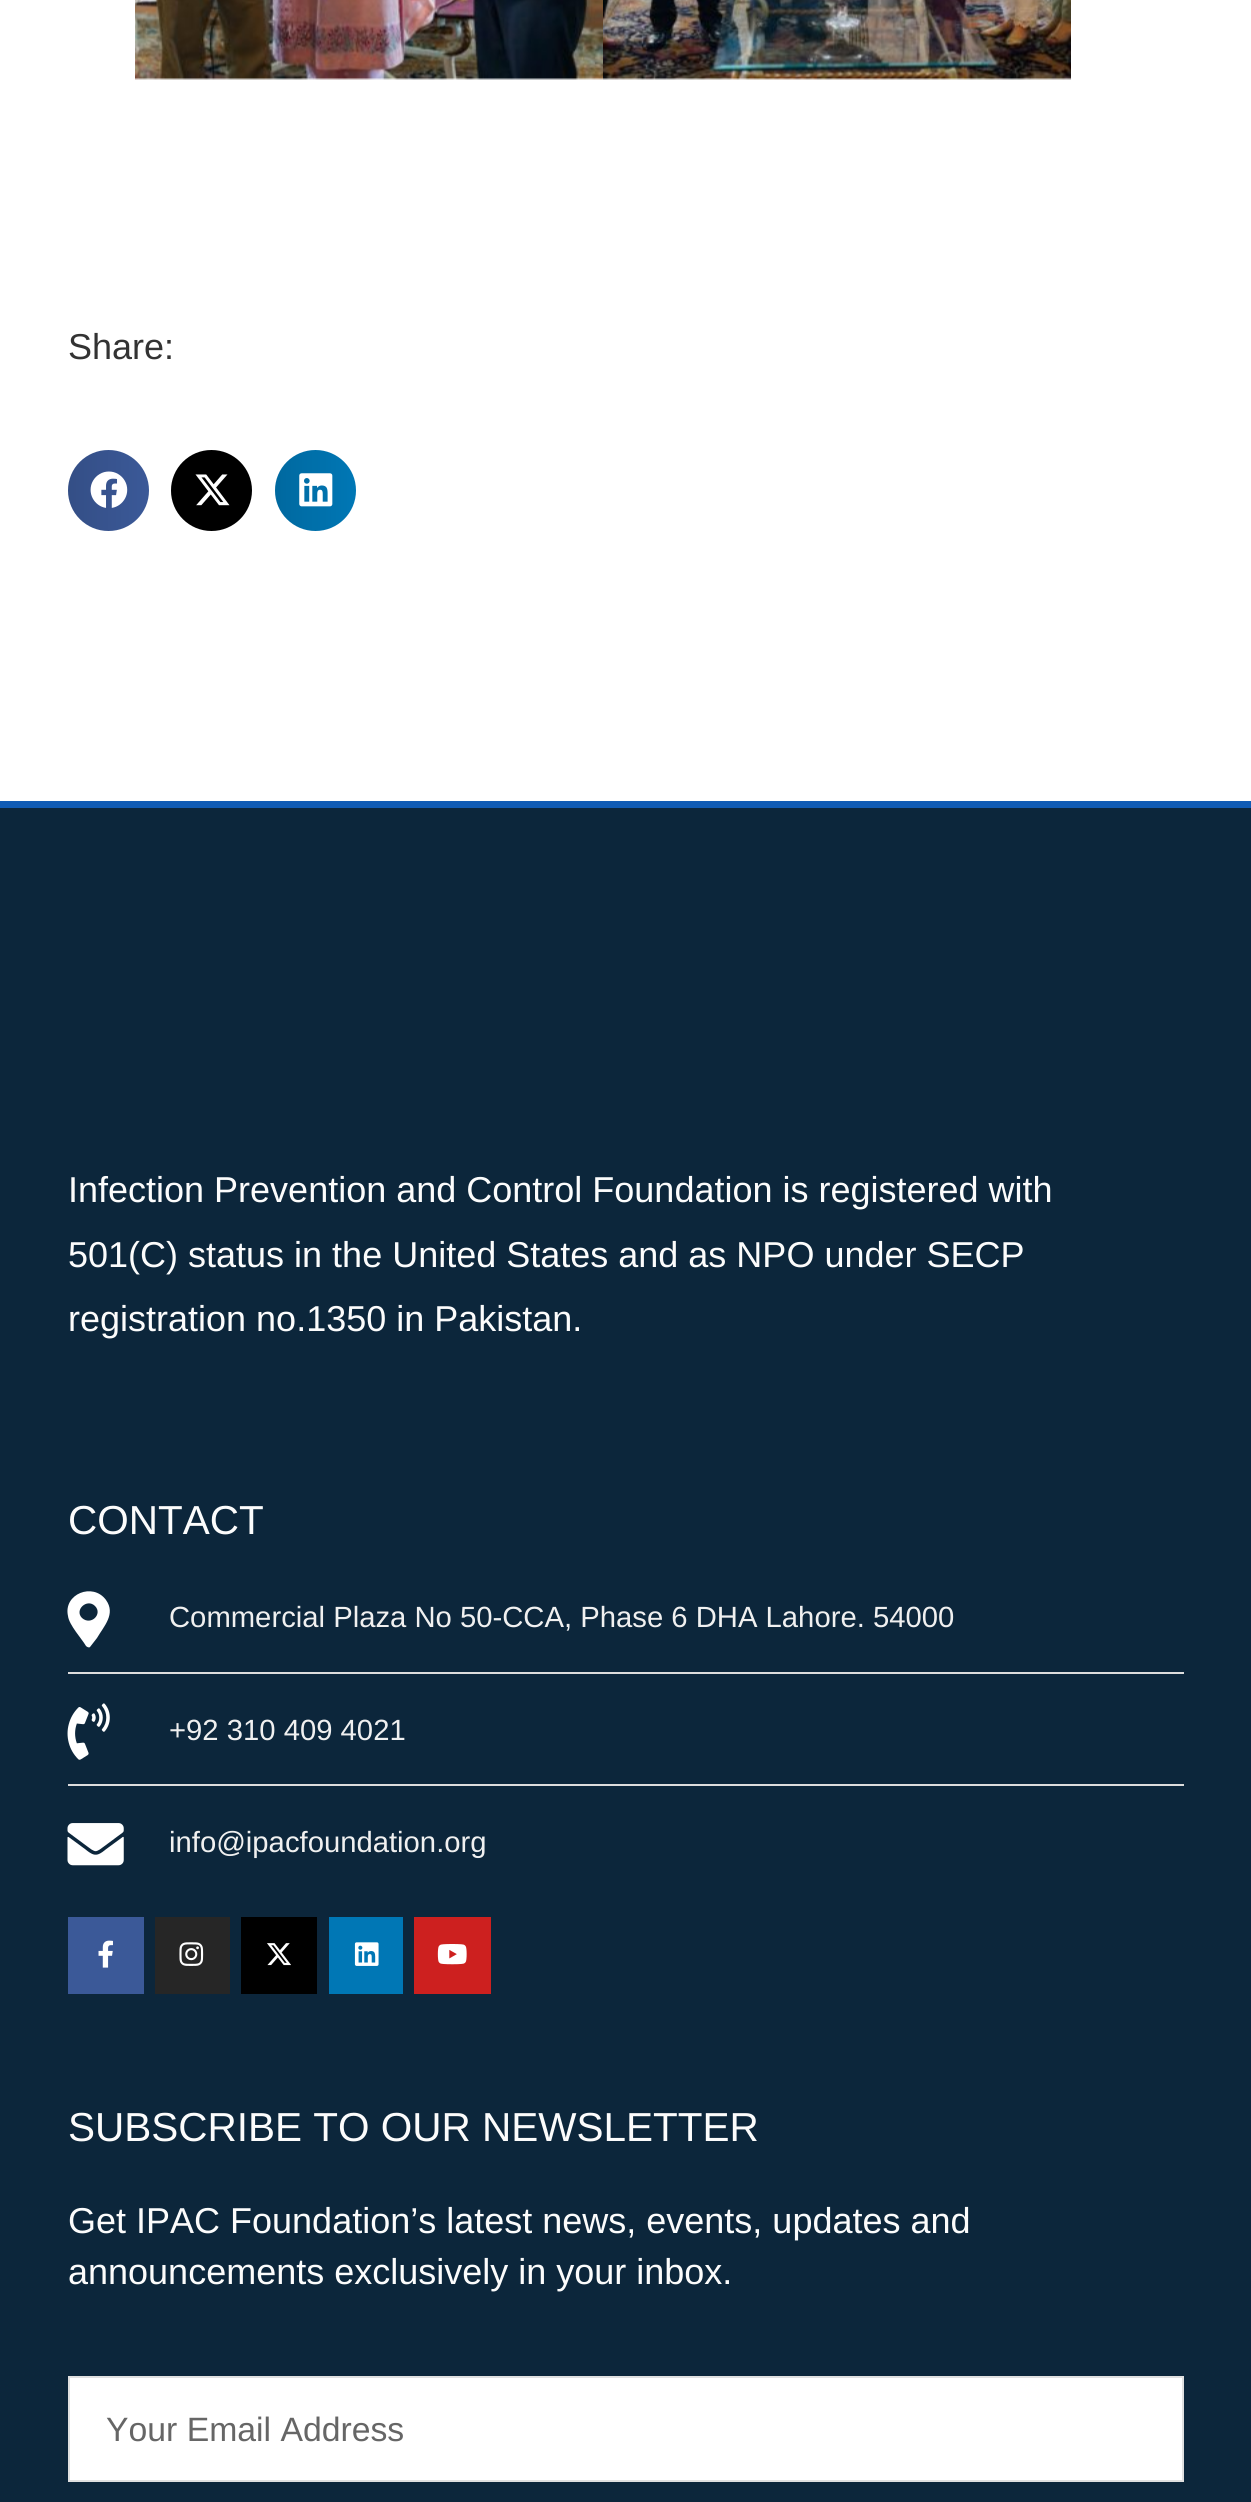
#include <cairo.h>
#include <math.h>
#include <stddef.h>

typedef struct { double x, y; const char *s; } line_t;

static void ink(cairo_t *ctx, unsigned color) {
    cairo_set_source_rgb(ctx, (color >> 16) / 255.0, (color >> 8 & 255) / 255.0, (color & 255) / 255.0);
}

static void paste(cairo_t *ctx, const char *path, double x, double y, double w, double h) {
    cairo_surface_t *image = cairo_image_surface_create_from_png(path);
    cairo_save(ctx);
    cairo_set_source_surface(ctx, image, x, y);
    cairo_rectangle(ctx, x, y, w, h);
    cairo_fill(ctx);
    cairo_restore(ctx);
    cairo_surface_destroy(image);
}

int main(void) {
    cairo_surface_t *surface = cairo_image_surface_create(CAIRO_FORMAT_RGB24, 1251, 2502);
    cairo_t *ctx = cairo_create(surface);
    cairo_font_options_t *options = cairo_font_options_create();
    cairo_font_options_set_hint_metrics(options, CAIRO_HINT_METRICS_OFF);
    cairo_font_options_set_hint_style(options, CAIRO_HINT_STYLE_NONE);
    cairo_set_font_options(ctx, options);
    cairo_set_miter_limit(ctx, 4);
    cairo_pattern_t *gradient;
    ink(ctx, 0x0C263B);
    cairo_paint(ctx);
    ink(ctx, 0xFFFFFF);
    cairo_rectangle(ctx, 0, 0, 1251, 801);
    cairo_fill(ctx);
    paste(ctx, "media/1.png", 135, 0, 468, 80);
    paste(ctx, "media/2.png", 603, 0, 468, 80);
    cairo_select_font_face(ctx, "Liberation Sans", CAIRO_FONT_SLANT_NORMAL, CAIRO_FONT_WEIGHT_NORMAL);
    cairo_set_font_size(ctx, 36);
    ink(ctx, 0x333333);
    cairo_move_to(ctx, 68, 359);
    cairo_show_text(ctx, "Share:");
    ink(ctx, 0x3B5998);
    cairo_new_path(ctx);
    cairo_arc(ctx, 108.5, 490.5, 40.5, 0, 2 * M_PI);
    cairo_fill(ctx);
    gradient = cairo_pattern_create_linear(68, 491, 149, 491);
    cairo_pattern_add_color_stop_rgba(gradient, 0, 0, 0, 0, 0.12);
    cairo_pattern_add_color_stop_rgba(gradient, 1, 0, 0, 0, 0);
    cairo_set_source(ctx, gradient);
    cairo_pattern_destroy(gradient);
    cairo_arc(ctx, 108.5, 490.5, 40.5, 0, 2 * M_PI);
    cairo_fill(ctx);
    paste(ctx, "media/3.png", 90, 471, 38, 37);
    ink(ctx, 0x000000);
    cairo_arc(ctx, 211.5, 490.5, 40.5, 0, 2 * M_PI);
    cairo_fill(ctx);
    gradient = cairo_pattern_create_linear(171, 491, 252, 491);
    cairo_pattern_add_color_stop_rgba(gradient, 0, 0, 0, 0, 0.12);
    cairo_pattern_add_color_stop_rgba(gradient, 1, 0, 0, 0, 0);
    cairo_set_source(ctx, gradient);
    cairo_pattern_destroy(gradient);
    cairo_arc(ctx, 211.5, 490.5, 40.5, 0, 2 * M_PI);
    cairo_fill(ctx);
    paste(ctx, "media/4.png", 195, 474, 35, 32);
    ink(ctx, 0x0077B5);
    cairo_arc(ctx, 315.5, 490.5, 40.5, 0, 2 * M_PI);
    cairo_fill(ctx);
    gradient = cairo_pattern_create_linear(275, 491, 356, 491);
    cairo_pattern_add_color_stop_rgba(gradient, 0, 0, 0, 0, 0.12);
    cairo_pattern_add_color_stop_rgba(gradient, 1, 0, 0, 0, 0);
    cairo_set_source(ctx, gradient);
    cairo_pattern_destroy(gradient);
    cairo_arc(ctx, 315.5, 490.5, 40.5, 0, 2 * M_PI);
    cairo_fill(ctx);
    paste(ctx, "media/5.png", 299, 473, 34, 34);
    ink(ctx, 0x105BB4);
    cairo_rectangle(ctx, 0, 801, 1251, 7);
    cairo_fill(ctx);
    ink(ctx, 0xFCFCFC);
    {
        static const line_t items[] = {
            {68, 1202, "Infection Prevention and Control Foundation is registered with"},
            {68, 1267, "501(C) status in the United States and as NPO under SECP"},
            {68, 1331, "registration no.1350 in Pakistan."},
        };
        for (size_t i = 0; i < sizeof items / sizeof *items; i++) {
            cairo_move_to(ctx, items[i].x, items[i].y);
            cairo_show_text(ctx, items[i].s);
        }
    }
    cairo_set_font_size(ctx, 40.5);
    cairo_move_to(ctx, 68, 1534);
    cairo_show_text(ctx, "CONTACT");
    ink(ctx, 0xFFFFFF);
    cairo_new_path(ctx);
    cairo_move_to(ctx, 86, 1646);
    cairo_curve_to(ctx, 82, 1639, 69, 1625, 68, 1616);
    cairo_curve_to(ctx, 63, 1594, 93, 1582, 106, 1600);
    cairo_curve_to(ctx, 116, 1614, 104, 1626, 97, 1638);
    cairo_line_to(ctx, 90, 1647);
    cairo_curve_to(ctx, 89, 1648, 87, 1647, 86, 1646);
    cairo_close_path(ctx);
    cairo_move_to(ctx, 82, 1618);
    cairo_curve_to(ctx, 91, 1626, 103, 1614, 95, 1606);
    cairo_curve_to(ctx, 87, 1598, 74, 1610, 82, 1618);
    cairo_close_path(ctx);
    cairo_fill(ctx);
    cairo_set_font_size(ctx, 29.25);
    ink(ctx, 0xF0F0F0);
    cairo_move_to(ctx, 169, 1627);
    cairo_show_text(ctx, "Commercial Plaza No 50-CCA, Phase 6 DHA Lahore. 54000");
    ink(ctx, 0xDDDDDD);
    cairo_rectangle(ctx, 68, 1672, 1116, 2);
    cairo_fill(ctx);
    paste(ctx, "media/6.png", 67, 1703, 43, 57);
    ink(ctx, 0xF0F0F0);
    cairo_move_to(ctx, 169, 1740);
    cairo_show_text(ctx, "+92 310 409 4021");
    ink(ctx, 0xDDDDDD);
    cairo_rectangle(ctx, 68, 1784, 1116, 2);
    cairo_fill(ctx);
    paste(ctx, "media/7.png", 67, 1823, 57, 43);
    ink(ctx, 0xF0F0F0);
    cairo_move_to(ctx, 169, 1852);
    cairo_show_text(ctx, "info@ipacfoundation.org");
    ink(ctx, 0x3B5998);
    cairo_rectangle(ctx, 68, 1917, 76, 77);
    cairo_fill(ctx);
    paste(ctx, "media/8.png", 98, 1940, 15, 28);
    ink(ctx, 0x262626);
    cairo_rectangle(ctx, 155, 1917, 75, 77);
    cairo_fill(ctx);
    paste(ctx, "media/9.png", 179, 1942, 25, 24);
    ink(ctx, 0x000000);
    cairo_rectangle(ctx, 241, 1917, 76, 77);
    cairo_fill(ctx);
    paste(ctx, "media/10.png", 267, 1943, 24, 23);
    ink(ctx, 0x0077B5);
    cairo_rectangle(ctx, 329, 1917, 74, 77);
    cairo_fill(ctx);
    paste(ctx, "media/11.png", 354, 1942, 25, 24);
    ink(ctx, 0xCD201F);
    cairo_rectangle(ctx, 414, 1917, 77, 77);
    cairo_fill(ctx);
    paste(ctx, "media/12.png", 437, 1944, 30, 21);
    cairo_set_font_size(ctx, 40.5);
    ink(ctx, 0xFCFCFC);
    cairo_move_to(ctx, 68, 2141);
    cairo_show_text(ctx, "SUBSCRIBE TO OUR NEWSLETTER");
    cairo_set_font_size(ctx, 36);
    cairo_move_to(ctx, 68, 2233);
    cairo_show_text(ctx, "Get IPAC Foundation’s latest news, events, updates and");
    cairo_move_to(ctx, 68, 2284);
    cairo_show_text(ctx, "announcements exclusively in your inbox.");
    ink(ctx, 0xFFFFFF);
    cairo_rectangle(ctx, 69, 2377, 1114, 104);
    cairo_fill_preserve(ctx);
    ink(ctx, 0xE0E0E0);
    cairo_stroke(ctx);
    cairo_set_font_size(ctx, 33.75);
    ink(ctx, 0x666666);
    cairo_move_to(ctx, 106, 2441);
    cairo_show_text(ctx, "Your Email Address");
    cairo_surface_write_to_png(surface, "image.png");
    cairo_font_options_destroy(options);
    cairo_destroy(ctx);
    cairo_surface_destroy(surface);
    return 0;
}
